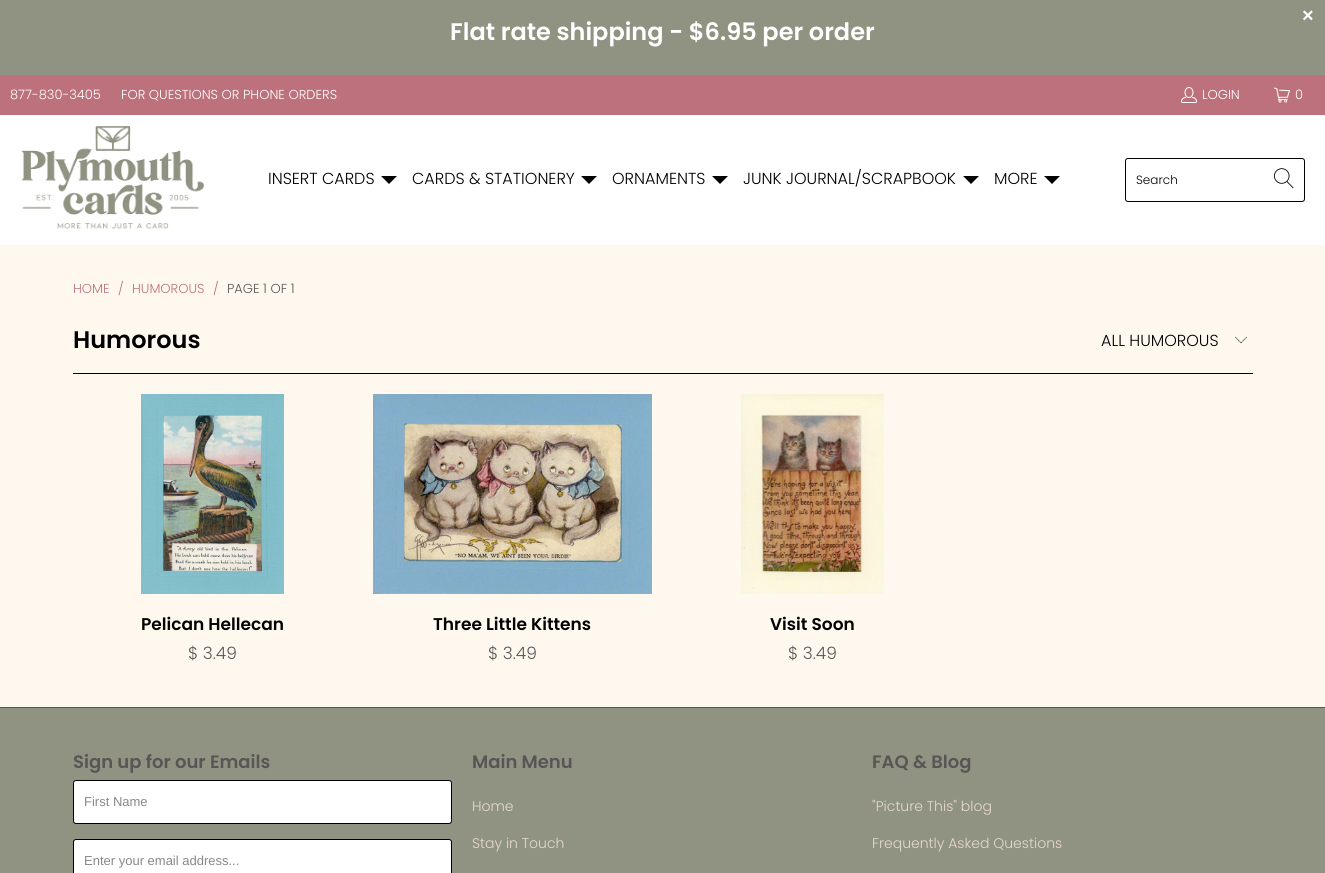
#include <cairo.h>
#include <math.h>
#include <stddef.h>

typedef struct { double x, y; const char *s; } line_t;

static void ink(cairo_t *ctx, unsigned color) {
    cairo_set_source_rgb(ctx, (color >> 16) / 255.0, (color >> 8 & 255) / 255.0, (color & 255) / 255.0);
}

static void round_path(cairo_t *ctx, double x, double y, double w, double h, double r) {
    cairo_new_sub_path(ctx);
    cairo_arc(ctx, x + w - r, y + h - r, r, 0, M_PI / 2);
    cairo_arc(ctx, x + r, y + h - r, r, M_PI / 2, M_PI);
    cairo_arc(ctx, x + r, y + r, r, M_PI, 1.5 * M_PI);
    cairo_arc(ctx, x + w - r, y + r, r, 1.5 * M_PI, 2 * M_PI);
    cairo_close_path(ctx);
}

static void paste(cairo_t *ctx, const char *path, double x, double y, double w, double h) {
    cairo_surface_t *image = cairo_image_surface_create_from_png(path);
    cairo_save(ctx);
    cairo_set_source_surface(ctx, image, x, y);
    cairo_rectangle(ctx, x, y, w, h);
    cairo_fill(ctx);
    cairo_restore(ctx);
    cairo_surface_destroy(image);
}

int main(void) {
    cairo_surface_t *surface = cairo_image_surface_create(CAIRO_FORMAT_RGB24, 1325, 873);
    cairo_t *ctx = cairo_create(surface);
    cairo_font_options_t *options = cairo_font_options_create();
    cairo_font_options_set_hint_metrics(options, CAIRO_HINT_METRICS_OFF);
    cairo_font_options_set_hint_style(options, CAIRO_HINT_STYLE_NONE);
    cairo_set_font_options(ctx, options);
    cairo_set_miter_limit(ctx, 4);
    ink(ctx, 0xFFF8EF);
    cairo_paint(ctx);
    ink(ctx, 0x909382);
    cairo_rectangle(ctx, 0, 0, 1325, 75);
    cairo_fill(ctx);
    cairo_select_font_face(ctx, "Liberation Sans", CAIRO_FONT_SLANT_NORMAL, CAIRO_FONT_WEIGHT_BOLD);
    cairo_set_font_size(ctx, 20);
    ink(ctx, 0xFFFFFF);
    cairo_move_to(ctx, 1302, 22);
    cairo_show_text(ctx, "×");
    cairo_select_font_face(ctx, "Poppins SemiBold", CAIRO_FONT_SLANT_NORMAL, CAIRO_FONT_WEIGHT_NORMAL);
    cairo_set_font_size(ctx, 24);
    cairo_move_to(ctx, 450, 40);
    cairo_show_text(ctx, "Flat rate shipping - $6.95 per order");
    ink(ctx, 0xBC717C);
    cairo_rectangle(ctx, 0, 75, 1325, 40);
    cairo_fill(ctx);
    cairo_select_font_face(ctx, "Poppins Light", CAIRO_FONT_SLANT_NORMAL, CAIRO_FONT_WEIGHT_NORMAL);
    cairo_set_font_size(ctx, 13);
    ink(ctx, 0xFFFFFF);
    cairo_move_to(ctx, 10, 99);
    cairo_show_text(ctx, "877-830-3405");
    cairo_move_to(ctx, 121, 99);
    cairo_show_text(ctx, "FOR QUESTIONS OR PHONE ORDERS");
    paste(ctx, "media/1.png", 1181, 87, 16, 16);
    cairo_move_to(ctx, 1202, 99);
    cairo_show_text(ctx, "LOGIN");
    paste(ctx, "media/2.png", 1274, 87, 16, 16);
    cairo_move_to(ctx, 1295, 99);
    cairo_show_text(ctx, "0");
    cairo_rectangle(ctx, 0, 115, 1325, 130);
    cairo_fill(ctx);
    paste(ctx, "media/3.png", 21, 126, 184, 104);
    cairo_set_font_size(ctx, 16);
    ink(ctx, 0x000000);
    cairo_move_to(ctx, 268, 184);
    cairo_show_text(ctx, "INSERT CARDS");
    cairo_new_path(ctx);
    cairo_move_to(ctx, 381, 176);
    cairo_line_to(ctx, 397, 176);
    cairo_line_to(ctx, 389, 184);
    cairo_close_path(ctx);
    cairo_fill(ctx);
    cairo_move_to(ctx, 412, 184);
    cairo_show_text(ctx, "CARDS & STATIONERY");
    cairo_new_path(ctx);
    cairo_move_to(ctx, 581, 176);
    cairo_line_to(ctx, 597, 176);
    cairo_line_to(ctx, 589, 184);
    cairo_close_path(ctx);
    cairo_fill(ctx);
    cairo_move_to(ctx, 612, 184);
    cairo_show_text(ctx, "ORNAMENTS");
    cairo_new_path(ctx);
    cairo_move_to(ctx, 712, 176);
    cairo_line_to(ctx, 728, 176);
    cairo_line_to(ctx, 720, 184);
    cairo_close_path(ctx);
    cairo_fill(ctx);
    cairo_move_to(ctx, 743, 184);
    cairo_show_text(ctx, "JUNK JOURNAL/SCRAPBOOK");
    cairo_new_path(ctx);
    cairo_move_to(ctx, 963, 176);
    cairo_line_to(ctx, 979, 176);
    cairo_line_to(ctx, 971, 184);
    cairo_close_path(ctx);
    cairo_fill(ctx);
    cairo_move_to(ctx, 994, 184);
    cairo_show_text(ctx, "MORE");
    cairo_new_path(ctx);
    cairo_move_to(ctx, 1044, 176);
    cairo_line_to(ctx, 1060, 176);
    cairo_line_to(ctx, 1052, 184);
    cairo_close_path(ctx);
    cairo_fill(ctx);
    round_path(ctx, 1125.5, 158.5, 179, 43, 2.5);
    cairo_set_line_width(ctx, 1);
    cairo_stroke(ctx);
    cairo_set_font_size(ctx, 12);
    cairo_move_to(ctx, 1136, 184);
    cairo_show_text(ctx, "Search");
    paste(ctx, "media/4.png", 1274, 168, 20, 21);
    cairo_set_font_size(ctx, 13);
    ink(ctx, 0xBC717C);
    {
        static const line_t items[] = {
            {73, 293, "HOME"},
            {118, 293, "/"},
            {132, 293, "HUMOROUS"},
            {213, 293, "/"},
        };
        for (size_t i = 0; i < sizeof items / sizeof *items; i++) {
            cairo_move_to(ctx, items[i].x, items[i].y);
            cairo_show_text(ctx, items[i].s);
        }
    }
    ink(ctx, 0x595555);
    cairo_move_to(ctx, 227, 293);
    cairo_show_text(ctx, "PAGE 1 OF 1");
    cairo_select_font_face(ctx, "Poppins SemiBold", CAIRO_FONT_SLANT_NORMAL, CAIRO_FONT_WEIGHT_NORMAL);
    cairo_set_font_size(ctx, 24);
    ink(ctx, 0x000000);
    cairo_move_to(ctx, 73, 348);
    cairo_show_text(ctx, "Humorous");
    paste(ctx, "media/5.png", 1235, 336, 12, 8);
    cairo_select_font_face(ctx, "Poppins Light", CAIRO_FONT_SLANT_NORMAL, CAIRO_FONT_WEIGHT_NORMAL);
    cairo_set_font_size(ctx, 16);
    cairo_move_to(ctx, 1101, 346);
    cairo_show_text(ctx, "ALL HUMOROUS");
    cairo_rectangle(ctx, 73, 373, 1180, 1);
    cairo_fill(ctx);
    paste(ctx, "media/6.png", 141, 394, 143, 200);
    cairo_select_font_face(ctx, "Poppins SemiBold", CAIRO_FONT_SLANT_NORMAL, CAIRO_FONT_WEIGHT_NORMAL);
    cairo_set_font_size(ctx, 17);
    cairo_move_to(ctx, 141, 630);
    cairo_show_text(ctx, "Pelican Hellecan");
    cairo_select_font_face(ctx, "Poppins Light", CAIRO_FONT_SLANT_NORMAL, CAIRO_FONT_WEIGHT_NORMAL);
    ink(ctx, 0x595555);
    cairo_move_to(ctx, 188, 659);
    cairo_show_text(ctx, "$ 3.49");
    paste(ctx, "media/7.png", 373, 394, 279, 200);
    cairo_select_font_face(ctx, "Poppins SemiBold", CAIRO_FONT_SLANT_NORMAL, CAIRO_FONT_WEIGHT_NORMAL);
    ink(ctx, 0x000000);
    cairo_move_to(ctx, 433, 630);
    cairo_show_text(ctx, "Three Little Kittens");
    cairo_select_font_face(ctx, "Poppins Light", CAIRO_FONT_SLANT_NORMAL, CAIRO_FONT_WEIGHT_NORMAL);
    ink(ctx, 0x595555);
    cairo_move_to(ctx, 488, 659);
    cairo_show_text(ctx, "$ 3.49");
    paste(ctx, "media/8.png", 740, 394, 144, 200);
    cairo_select_font_face(ctx, "Poppins SemiBold", CAIRO_FONT_SLANT_NORMAL, CAIRO_FONT_WEIGHT_NORMAL);
    ink(ctx, 0x000000);
    cairo_move_to(ctx, 770, 630);
    cairo_show_text(ctx, "Visit Soon");
    cairo_select_font_face(ctx, "Poppins Light", CAIRO_FONT_SLANT_NORMAL, CAIRO_FONT_WEIGHT_NORMAL);
    ink(ctx, 0x595555);
    cairo_move_to(ctx, 788, 659);
    cairo_show_text(ctx, "$ 3.49");
    ink(ctx, 0x909382);
    cairo_rectangle(ctx, 0, 708, 1325, 165);
    cairo_fill(ctx);
    ink(ctx, 0x595555);
    cairo_rectangle(ctx, 0, 707, 1325, 1);
    cairo_fill(ctx);
    cairo_select_font_face(ctx, "Poppins SemiBold", CAIRO_FONT_SLANT_NORMAL, CAIRO_FONT_WEIGHT_NORMAL);
    cairo_set_font_size(ctx, 18);
    cairo_move_to(ctx, 73, 768);
    cairo_show_text(ctx, "Sign up for our Emails");
    ink(ctx, 0xFFFFFF);
    round_path(ctx, 73.5, 780.5, 378, 43, 2.5);
    cairo_fill_preserve(ctx);
    ink(ctx, 0x000000);
    cairo_stroke(ctx);
    cairo_select_font_face(ctx, "Liberation Sans", CAIRO_FONT_SLANT_NORMAL, CAIRO_FONT_WEIGHT_NORMAL);
    cairo_set_font_size(ctx, 13);
    ink(ctx, 0x888888);
    cairo_move_to(ctx, 84, 806);
    cairo_show_text(ctx, "First Name");
    ink(ctx, 0xFFFFFF);
    round_path(ctx, 73.5, 839.5, 378, 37, 2.5);
    cairo_fill_preserve(ctx);
    ink(ctx, 0x000000);
    cairo_stroke(ctx);
    ink(ctx, 0x888888);
    cairo_move_to(ctx, 84, 865);
    cairo_show_text(ctx, "Enter your email address...");
    cairo_select_font_face(ctx, "Poppins SemiBold", CAIRO_FONT_SLANT_NORMAL, CAIRO_FONT_WEIGHT_NORMAL);
    cairo_set_font_size(ctx, 18);
    ink(ctx, 0x595555);
    cairo_move_to(ctx, 472, 768);
    cairo_show_text(ctx, "Main Menu");
    cairo_select_font_face(ctx, "Poppins Light", CAIRO_FONT_SLANT_NORMAL, CAIRO_FONT_WEIGHT_NORMAL);
    cairo_set_font_size(ctx, 14);
    ink(ctx, 0xE7D9C9);
    cairo_move_to(ctx, 472, 811);
    cairo_show_text(ctx, "Home");
    cairo_move_to(ctx, 472, 848);
    cairo_show_text(ctx, "Stay in Touch");
    cairo_select_font_face(ctx, "Poppins SemiBold", CAIRO_FONT_SLANT_NORMAL, CAIRO_FONT_WEIGHT_NORMAL);
    cairo_set_font_size(ctx, 18);
    ink(ctx, 0x595555);
    cairo_move_to(ctx, 872, 768);
    cairo_show_text(ctx, "FAQ & Blog");
    cairo_select_font_face(ctx, "Poppins Light", CAIRO_FONT_SLANT_NORMAL, CAIRO_FONT_WEIGHT_NORMAL);
    cairo_set_font_size(ctx, 14);
    ink(ctx, 0xE7D9C9);
    cairo_move_to(ctx, 872, 811);
    cairo_show_text(ctx, "\"Picture This\" blog");
    cairo_move_to(ctx, 872, 848);
    cairo_show_text(ctx, "Frequently Asked Questions");
    cairo_surface_write_to_png(surface, "image.png");
    cairo_font_options_destroy(options);
    cairo_destroy(ctx);
    cairo_surface_destroy(surface);
    return 0;
}
